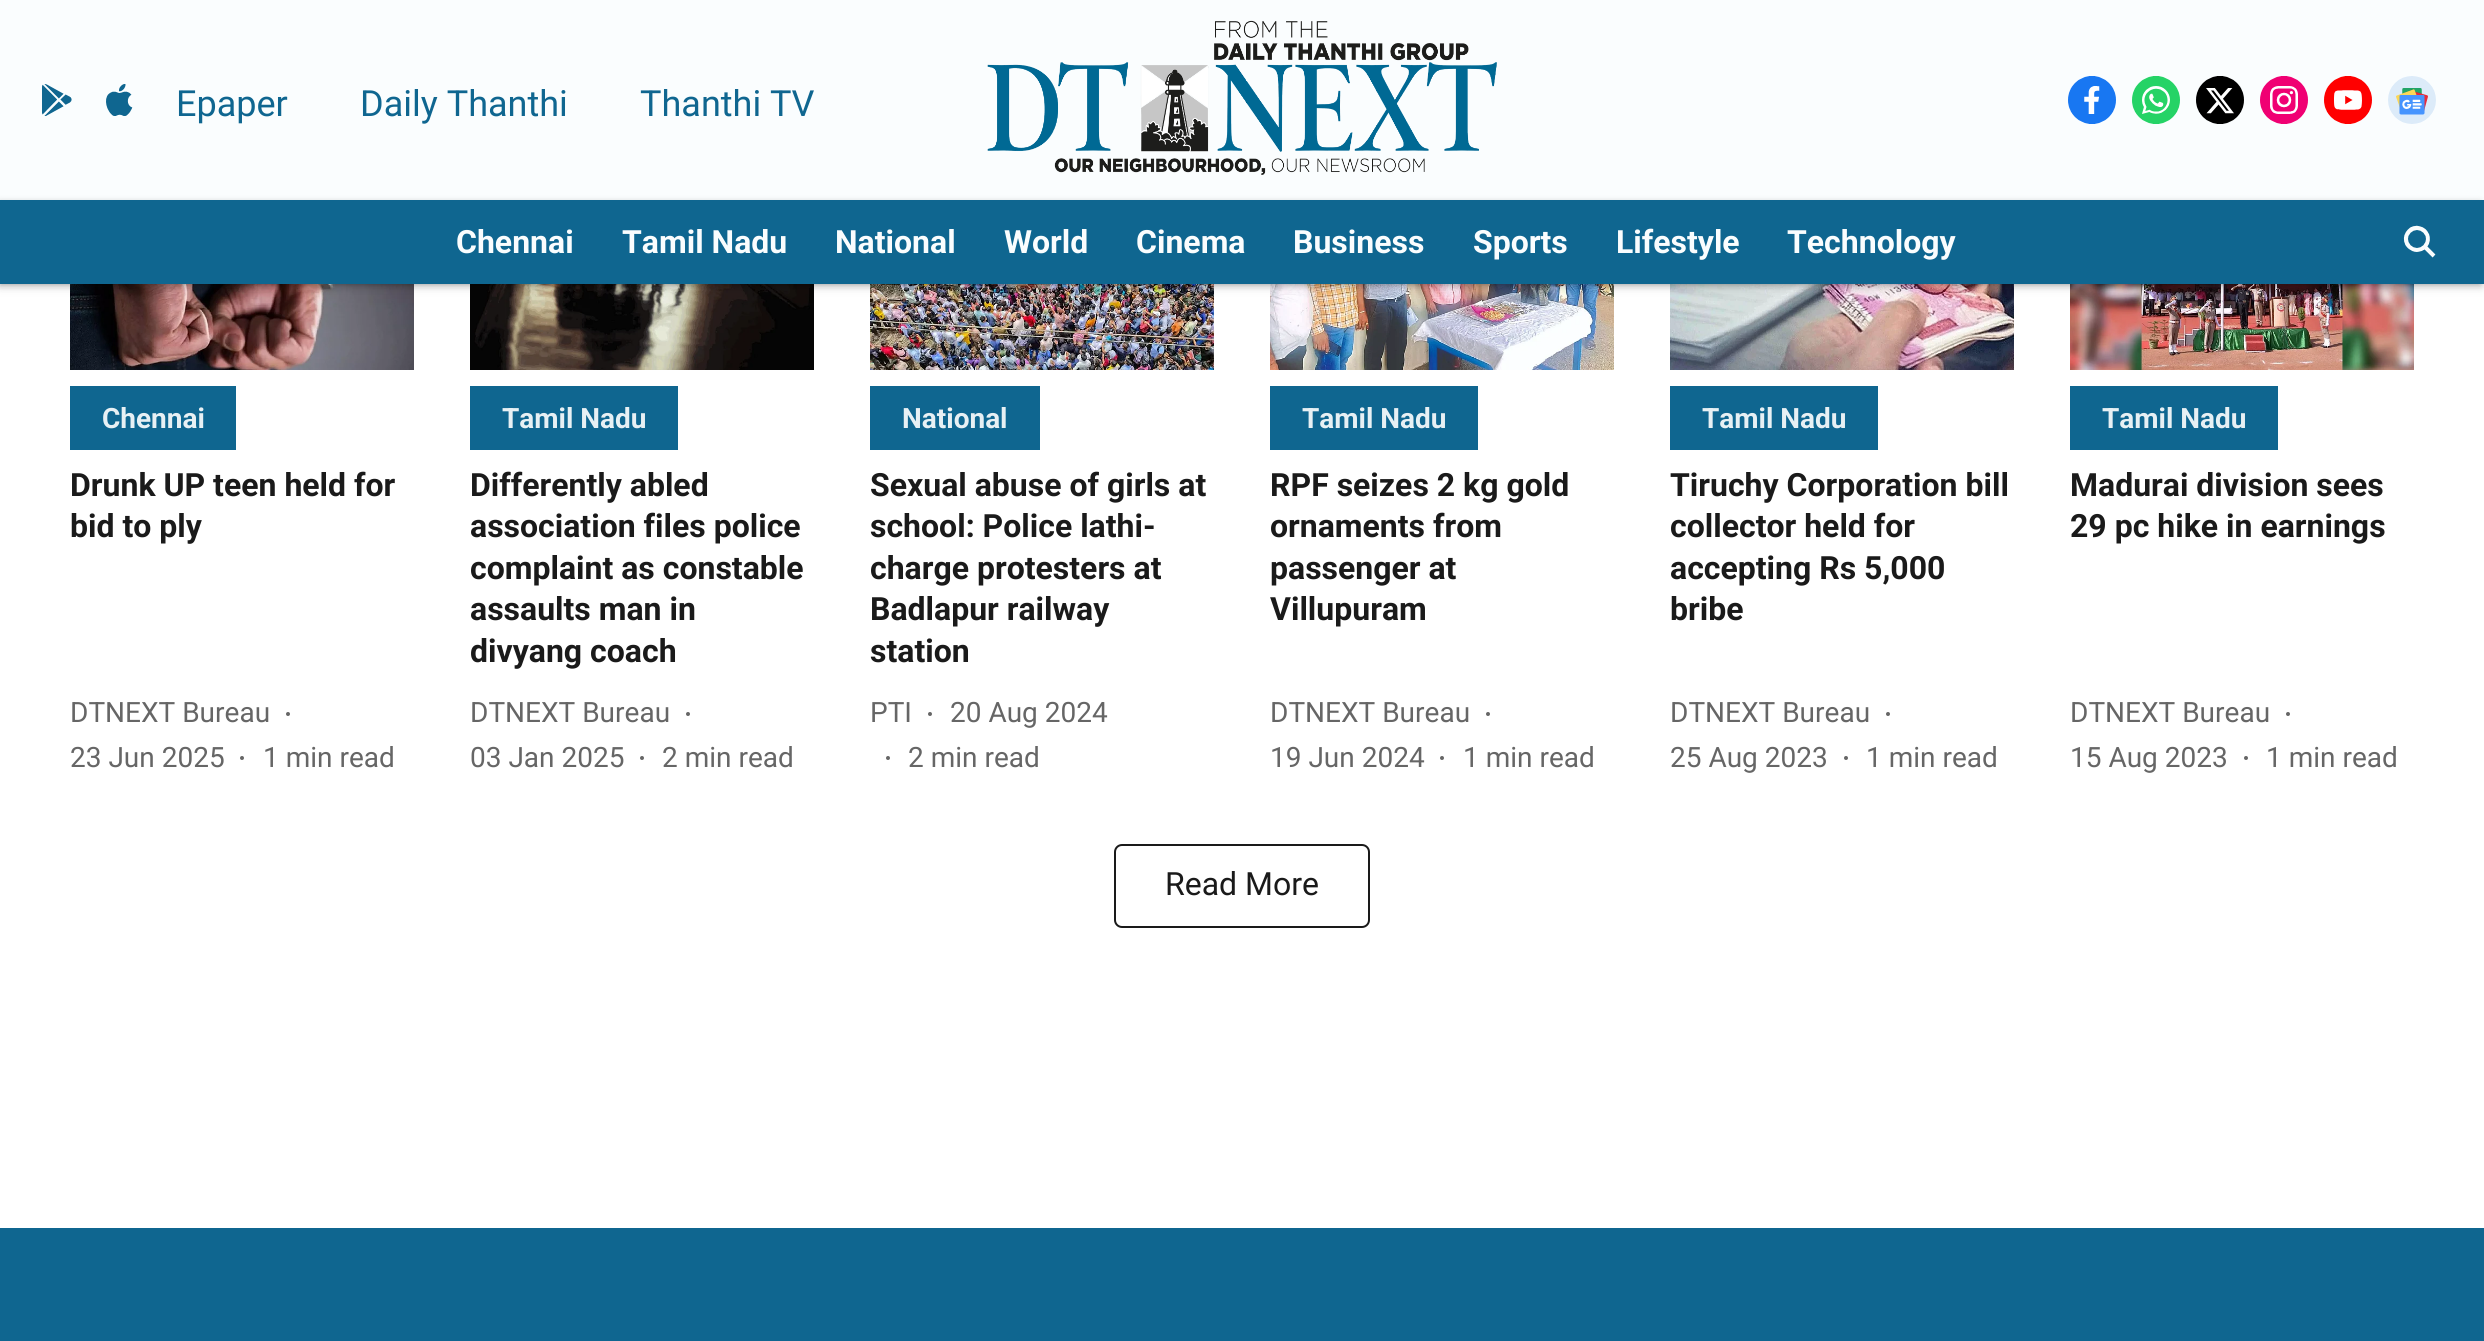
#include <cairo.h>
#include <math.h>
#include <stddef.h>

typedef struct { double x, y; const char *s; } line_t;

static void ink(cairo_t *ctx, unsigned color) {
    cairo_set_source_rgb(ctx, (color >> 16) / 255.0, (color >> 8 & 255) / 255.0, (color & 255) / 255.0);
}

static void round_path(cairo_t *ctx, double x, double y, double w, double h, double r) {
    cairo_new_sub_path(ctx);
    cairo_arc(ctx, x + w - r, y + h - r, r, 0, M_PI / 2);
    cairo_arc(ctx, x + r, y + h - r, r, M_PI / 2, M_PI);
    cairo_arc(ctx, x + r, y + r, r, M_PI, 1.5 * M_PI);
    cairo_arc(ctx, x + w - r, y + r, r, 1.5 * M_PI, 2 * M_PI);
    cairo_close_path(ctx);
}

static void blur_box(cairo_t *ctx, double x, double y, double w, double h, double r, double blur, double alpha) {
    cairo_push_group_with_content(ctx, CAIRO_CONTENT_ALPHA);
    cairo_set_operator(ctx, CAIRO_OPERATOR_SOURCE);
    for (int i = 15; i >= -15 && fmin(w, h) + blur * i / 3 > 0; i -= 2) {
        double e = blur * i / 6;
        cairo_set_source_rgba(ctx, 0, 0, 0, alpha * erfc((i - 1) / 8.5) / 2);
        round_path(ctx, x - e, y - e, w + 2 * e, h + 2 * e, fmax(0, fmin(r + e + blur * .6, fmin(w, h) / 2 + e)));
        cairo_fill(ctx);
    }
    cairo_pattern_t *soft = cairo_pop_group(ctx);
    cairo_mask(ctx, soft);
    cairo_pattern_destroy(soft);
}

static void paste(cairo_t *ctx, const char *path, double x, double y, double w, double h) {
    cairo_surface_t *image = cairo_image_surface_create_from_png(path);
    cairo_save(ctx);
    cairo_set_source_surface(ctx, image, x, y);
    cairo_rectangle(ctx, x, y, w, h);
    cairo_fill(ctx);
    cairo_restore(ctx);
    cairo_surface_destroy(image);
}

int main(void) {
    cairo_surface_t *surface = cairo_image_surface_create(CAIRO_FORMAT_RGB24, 2484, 1341);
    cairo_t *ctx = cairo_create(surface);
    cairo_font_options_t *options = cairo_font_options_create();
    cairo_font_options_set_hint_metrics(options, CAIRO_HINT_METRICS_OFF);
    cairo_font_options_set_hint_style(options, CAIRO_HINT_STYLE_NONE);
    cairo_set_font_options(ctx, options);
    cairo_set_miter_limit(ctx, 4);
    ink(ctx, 0xFFFFFF);
    cairo_paint(ctx);
    paste(ctx, "media/11.png", 70, 284, 344, 86);
    paste(ctx, "media/12.png", 470, 284, 344, 86);
    paste(ctx, "media/13.png", 870, 284, 344, 86);
    paste(ctx, "media/14.png", 1270, 284, 344, 86);
    paste(ctx, "media/15.png", 1670, 284, 344, 86);
    paste(ctx, "media/16.png", 2070, 284, 344, 86);
    ink(ctx, 0x000000);
    blur_box(ctx, 0, 2, 2484, 284, 0, 6, 0.1);
    ink(ctx, 0xFAFDFE);
    cairo_rectangle(ctx, 0, 0, 2484, 200);
    cairo_fill(ctx);
    paste(ctx, "media/1.png", 42, 84, 30, 32);
    paste(ctx, "media/2.png", 106, 84, 27, 32);
    cairo_select_font_face(ctx, "Roboto", CAIRO_FONT_SLANT_NORMAL, CAIRO_FONT_WEIGHT_NORMAL);
    cairo_set_font_size(ctx, 36);
    ink(ctx, 0x0F6690);
    {
        static const line_t items[] = {
            {176, 116, "Epaper"},
            {360, 116, "Daily Thanthi"},
            {640, 116, "Thanthi TV"},
        };
        for (size_t i = 0; i < sizeof items / sizeof *items; i++) {
            cairo_move_to(ctx, items[i].x, items[i].y);
            cairo_show_text(ctx, items[i].s);
        }
    }
    paste(ctx, "media/3.png", 987, 20, 510, 155);
    paste(ctx, "media/4.png", 2068, 76, 48, 48);
    paste(ctx, "media/5.png", 2132, 76, 48, 48);
    paste(ctx, "media/6.png", 2196, 76, 48, 48);
    paste(ctx, "media/7.png", 2260, 76, 48, 48);
    paste(ctx, "media/8.png", 2324, 76, 48, 48);
    paste(ctx, "media/9.png", 2388, 76, 48, 48);
    ink(ctx, 0x000000);
    blur_box(ctx, 0, 204, 2480, 80, 0, 4, 0.39);
    ink(ctx, 0x0F6690);
    cairo_rectangle(ctx, 0, 200, 2484, 84);
    cairo_fill(ctx);
    cairo_select_font_face(ctx, "Roboto", CAIRO_FONT_SLANT_NORMAL, CAIRO_FONT_WEIGHT_BOLD);
    cairo_set_font_size(ctx, 32);
    ink(ctx, 0xFAFDFE);
    {
        static const line_t items[] = {
            {456, 253, "Chennai"},
            {622, 253, "Tamil Nadu"},
            {835, 253, "National"},
            {1004, 253, "World"},
            {1136, 253, "Cinema"},
            {1293, 253, "Business"},
            {1473, 253, "Sports"},
            {1616, 253, "Lifestyle"},
            {1787, 253, "Technology"},
        };
        for (size_t i = 0; i < sizeof items / sizeof *items; i++) {
            cairo_move_to(ctx, items[i].x, items[i].y);
            cairo_show_text(ctx, items[i].s);
        }
    }
    paste(ctx, "media/10.png", 2403, 225, 33, 33);
    ink(ctx, 0x0F6690);
    cairo_rectangle(ctx, 70, 386, 166, 64);
    cairo_fill(ctx);
    cairo_set_font_size(ctx, 28);
    ink(ctx, 0xE7F0F4);
    cairo_move_to(ctx, 102, 428);
    cairo_show_text(ctx, "Chennai");
    cairo_set_font_size(ctx, 32);
    ink(ctx, 0x1A1A1A);
    cairo_move_to(ctx, 70, 496);
    cairo_show_text(ctx, "Drunk UP teen held for");
    cairo_move_to(ctx, 70, 537);
    cairo_show_text(ctx, "bid to ply");
    cairo_select_font_face(ctx, "Roboto", CAIRO_FONT_SLANT_NORMAL, CAIRO_FONT_WEIGHT_NORMAL);
    cairo_set_font_size(ctx, 28);
    ink(ctx, 0x666666);
    cairo_move_to(ctx, 70, 722);
    cairo_show_text(ctx, "DTNEXT Bureau");
    cairo_new_path(ctx);
    cairo_arc(ctx, 288, 714, 2, 0, 2 * M_PI);
    cairo_fill(ctx);
    cairo_move_to(ctx, 70, 767);
    cairo_show_text(ctx, "23 Jun 2025");
    cairo_new_path(ctx);
    cairo_arc(ctx, 242, 758, 2, 0, 2 * M_PI);
    cairo_fill(ctx);
    cairo_move_to(ctx, 263, 767);
    cairo_show_text(ctx, "1 min read");
    ink(ctx, 0x0F6690);
    cairo_rectangle(ctx, 470, 386, 208, 64);
    cairo_fill(ctx);
    cairo_select_font_face(ctx, "Roboto", CAIRO_FONT_SLANT_NORMAL, CAIRO_FONT_WEIGHT_BOLD);
    ink(ctx, 0xE7F0F4);
    cairo_move_to(ctx, 502, 428);
    cairo_show_text(ctx, "Tamil Nadu");
    cairo_set_font_size(ctx, 32);
    ink(ctx, 0x1A1A1A);
    {
        static const line_t items[] = {
            {470, 496, "Differently abled"},
            {470, 537, "association files police"},
            {470, 579, "complaint as constable"},
            {470, 620, "assaults man in"},
            {470, 662, "divyang coach"},
        };
        for (size_t i = 0; i < sizeof items / sizeof *items; i++) {
            cairo_move_to(ctx, items[i].x, items[i].y);
            cairo_show_text(ctx, items[i].s);
        }
    }
    cairo_select_font_face(ctx, "Roboto", CAIRO_FONT_SLANT_NORMAL, CAIRO_FONT_WEIGHT_NORMAL);
    cairo_set_font_size(ctx, 28);
    ink(ctx, 0x666666);
    cairo_move_to(ctx, 470, 722);
    cairo_show_text(ctx, "DTNEXT Bureau");
    cairo_new_path(ctx);
    cairo_arc(ctx, 688, 714, 2, 0, 2 * M_PI);
    cairo_fill(ctx);
    cairo_move_to(ctx, 470, 767);
    cairo_show_text(ctx, "03 Jan 2025");
    cairo_new_path(ctx);
    cairo_arc(ctx, 642, 758, 2, 0, 2 * M_PI);
    cairo_fill(ctx);
    cairo_move_to(ctx, 662, 767);
    cairo_show_text(ctx, "2 min read");
    ink(ctx, 0x0F6690);
    cairo_rectangle(ctx, 870, 386, 170, 64);
    cairo_fill(ctx);
    cairo_select_font_face(ctx, "Roboto", CAIRO_FONT_SLANT_NORMAL, CAIRO_FONT_WEIGHT_BOLD);
    ink(ctx, 0xE7F0F4);
    cairo_move_to(ctx, 902, 428);
    cairo_show_text(ctx, "National");
    cairo_set_font_size(ctx, 32);
    ink(ctx, 0x1A1A1A);
    {
        static const line_t items[] = {
            {870, 496, "Sexual abuse of girls at"},
            {870, 537, "school: Police lathi-"},
            {870, 579, "charge protesters at"},
            {870, 620, "Badlapur railway"},
            {870, 662, "station"},
        };
        for (size_t i = 0; i < sizeof items / sizeof *items; i++) {
            cairo_move_to(ctx, items[i].x, items[i].y);
            cairo_show_text(ctx, items[i].s);
        }
    }
    cairo_select_font_face(ctx, "Roboto", CAIRO_FONT_SLANT_NORMAL, CAIRO_FONT_WEIGHT_NORMAL);
    cairo_set_font_size(ctx, 28);
    ink(ctx, 0x666666);
    cairo_move_to(ctx, 870, 722);
    cairo_show_text(ctx, "PTI");
    cairo_new_path(ctx);
    cairo_arc(ctx, 930, 714, 2, 0, 2 * M_PI);
    cairo_fill(ctx);
    cairo_move_to(ctx, 950, 722);
    cairo_show_text(ctx, "20 Aug 2024");
    cairo_new_path(ctx);
    cairo_arc(ctx, 888, 758, 2, 0, 2 * M_PI);
    cairo_fill(ctx);
    cairo_move_to(ctx, 908, 767);
    cairo_show_text(ctx, "2 min read");
    ink(ctx, 0x0F6690);
    cairo_rectangle(ctx, 1270, 386, 208, 64);
    cairo_fill(ctx);
    cairo_select_font_face(ctx, "Roboto", CAIRO_FONT_SLANT_NORMAL, CAIRO_FONT_WEIGHT_BOLD);
    ink(ctx, 0xE7F0F4);
    cairo_move_to(ctx, 1302, 428);
    cairo_show_text(ctx, "Tamil Nadu");
    cairo_set_font_size(ctx, 32);
    ink(ctx, 0x1A1A1A);
    {
        static const line_t items[] = {
            {1270, 496, "RPF seizes 2 kg gold"},
            {1270, 537, "ornaments from"},
            {1270, 579, "passenger at"},
            {1270, 620, "Villupuram"},
        };
        for (size_t i = 0; i < sizeof items / sizeof *items; i++) {
            cairo_move_to(ctx, items[i].x, items[i].y);
            cairo_show_text(ctx, items[i].s);
        }
    }
    cairo_select_font_face(ctx, "Roboto", CAIRO_FONT_SLANT_NORMAL, CAIRO_FONT_WEIGHT_NORMAL);
    cairo_set_font_size(ctx, 28);
    ink(ctx, 0x666666);
    cairo_move_to(ctx, 1270, 722);
    cairo_show_text(ctx, "DTNEXT Bureau");
    cairo_new_path(ctx);
    cairo_arc(ctx, 1488, 714, 2, 0, 2 * M_PI);
    cairo_fill(ctx);
    cairo_move_to(ctx, 1270, 767);
    cairo_show_text(ctx, "19 Jun 2024");
    cairo_new_path(ctx);
    cairo_arc(ctx, 1442, 758, 2, 0, 2 * M_PI);
    cairo_fill(ctx);
    cairo_move_to(ctx, 1463, 767);
    cairo_show_text(ctx, "1 min read");
    ink(ctx, 0x0F6690);
    cairo_rectangle(ctx, 1670, 386, 208, 64);
    cairo_fill(ctx);
    cairo_select_font_face(ctx, "Roboto", CAIRO_FONT_SLANT_NORMAL, CAIRO_FONT_WEIGHT_BOLD);
    ink(ctx, 0xE7F0F4);
    cairo_move_to(ctx, 1702, 428);
    cairo_show_text(ctx, "Tamil Nadu");
    cairo_set_font_size(ctx, 32);
    ink(ctx, 0x1A1A1A);
    {
        static const line_t items[] = {
            {1670, 496, "Tiruchy Corporation bill"},
            {1670, 537, "collector held for"},
            {1670, 579, "accepting Rs 5,000"},
            {1670, 620, "bribe"},
        };
        for (size_t i = 0; i < sizeof items / sizeof *items; i++) {
            cairo_move_to(ctx, items[i].x, items[i].y);
            cairo_show_text(ctx, items[i].s);
        }
    }
    cairo_select_font_face(ctx, "Roboto", CAIRO_FONT_SLANT_NORMAL, CAIRO_FONT_WEIGHT_NORMAL);
    cairo_set_font_size(ctx, 28);
    ink(ctx, 0x666666);
    cairo_move_to(ctx, 1670, 722);
    cairo_show_text(ctx, "DTNEXT Bureau");
    cairo_new_path(ctx);
    cairo_arc(ctx, 1888, 714, 2, 0, 2 * M_PI);
    cairo_fill(ctx);
    cairo_move_to(ctx, 1670, 767);
    cairo_show_text(ctx, "25 Aug 2023");
    cairo_new_path(ctx);
    cairo_arc(ctx, 1846, 758, 2, 0, 2 * M_PI);
    cairo_fill(ctx);
    cairo_move_to(ctx, 1866, 767);
    cairo_show_text(ctx, "1 min read");
    ink(ctx, 0x0F6690);
    cairo_rectangle(ctx, 2070, 386, 208, 64);
    cairo_fill(ctx);
    cairo_select_font_face(ctx, "Roboto", CAIRO_FONT_SLANT_NORMAL, CAIRO_FONT_WEIGHT_BOLD);
    ink(ctx, 0xE7F0F4);
    cairo_move_to(ctx, 2102, 428);
    cairo_show_text(ctx, "Tamil Nadu");
    cairo_set_font_size(ctx, 32);
    ink(ctx, 0x1A1A1A);
    cairo_move_to(ctx, 2070, 496);
    cairo_show_text(ctx, "Madurai division sees");
    cairo_move_to(ctx, 2070, 537);
    cairo_show_text(ctx, "29 pc hike in earnings");
    cairo_select_font_face(ctx, "Roboto", CAIRO_FONT_SLANT_NORMAL, CAIRO_FONT_WEIGHT_NORMAL);
    cairo_set_font_size(ctx, 28);
    ink(ctx, 0x666666);
    cairo_move_to(ctx, 2070, 722);
    cairo_show_text(ctx, "DTNEXT Bureau");
    cairo_new_path(ctx);
    cairo_arc(ctx, 2288, 714, 2, 0, 2 * M_PI);
    cairo_fill(ctx);
    cairo_move_to(ctx, 2070, 767);
    cairo_show_text(ctx, "15 Aug 2023");
    cairo_new_path(ctx);
    cairo_arc(ctx, 2246, 758, 2, 0, 2 * M_PI);
    cairo_fill(ctx);
    cairo_move_to(ctx, 2266, 767);
    cairo_show_text(ctx, "1 min read");
    round_path(ctx, 1115, 845, 254, 82, 7);
    ink(ctx, 0x1A1A1A);
    cairo_stroke(ctx);
    cairo_set_font_size(ctx, 32);
    cairo_move_to(ctx, 1165, 895);
    cairo_show_text(ctx, "Read More");
    ink(ctx, 0x0F6690);
    cairo_rectangle(ctx, 0, 1228, 2484, 113);
    cairo_fill(ctx);
    cairo_surface_write_to_png(surface, "image.png");
    cairo_font_options_destroy(options);
    cairo_destroy(ctx);
    cairo_surface_destroy(surface);
    return 0;
}
